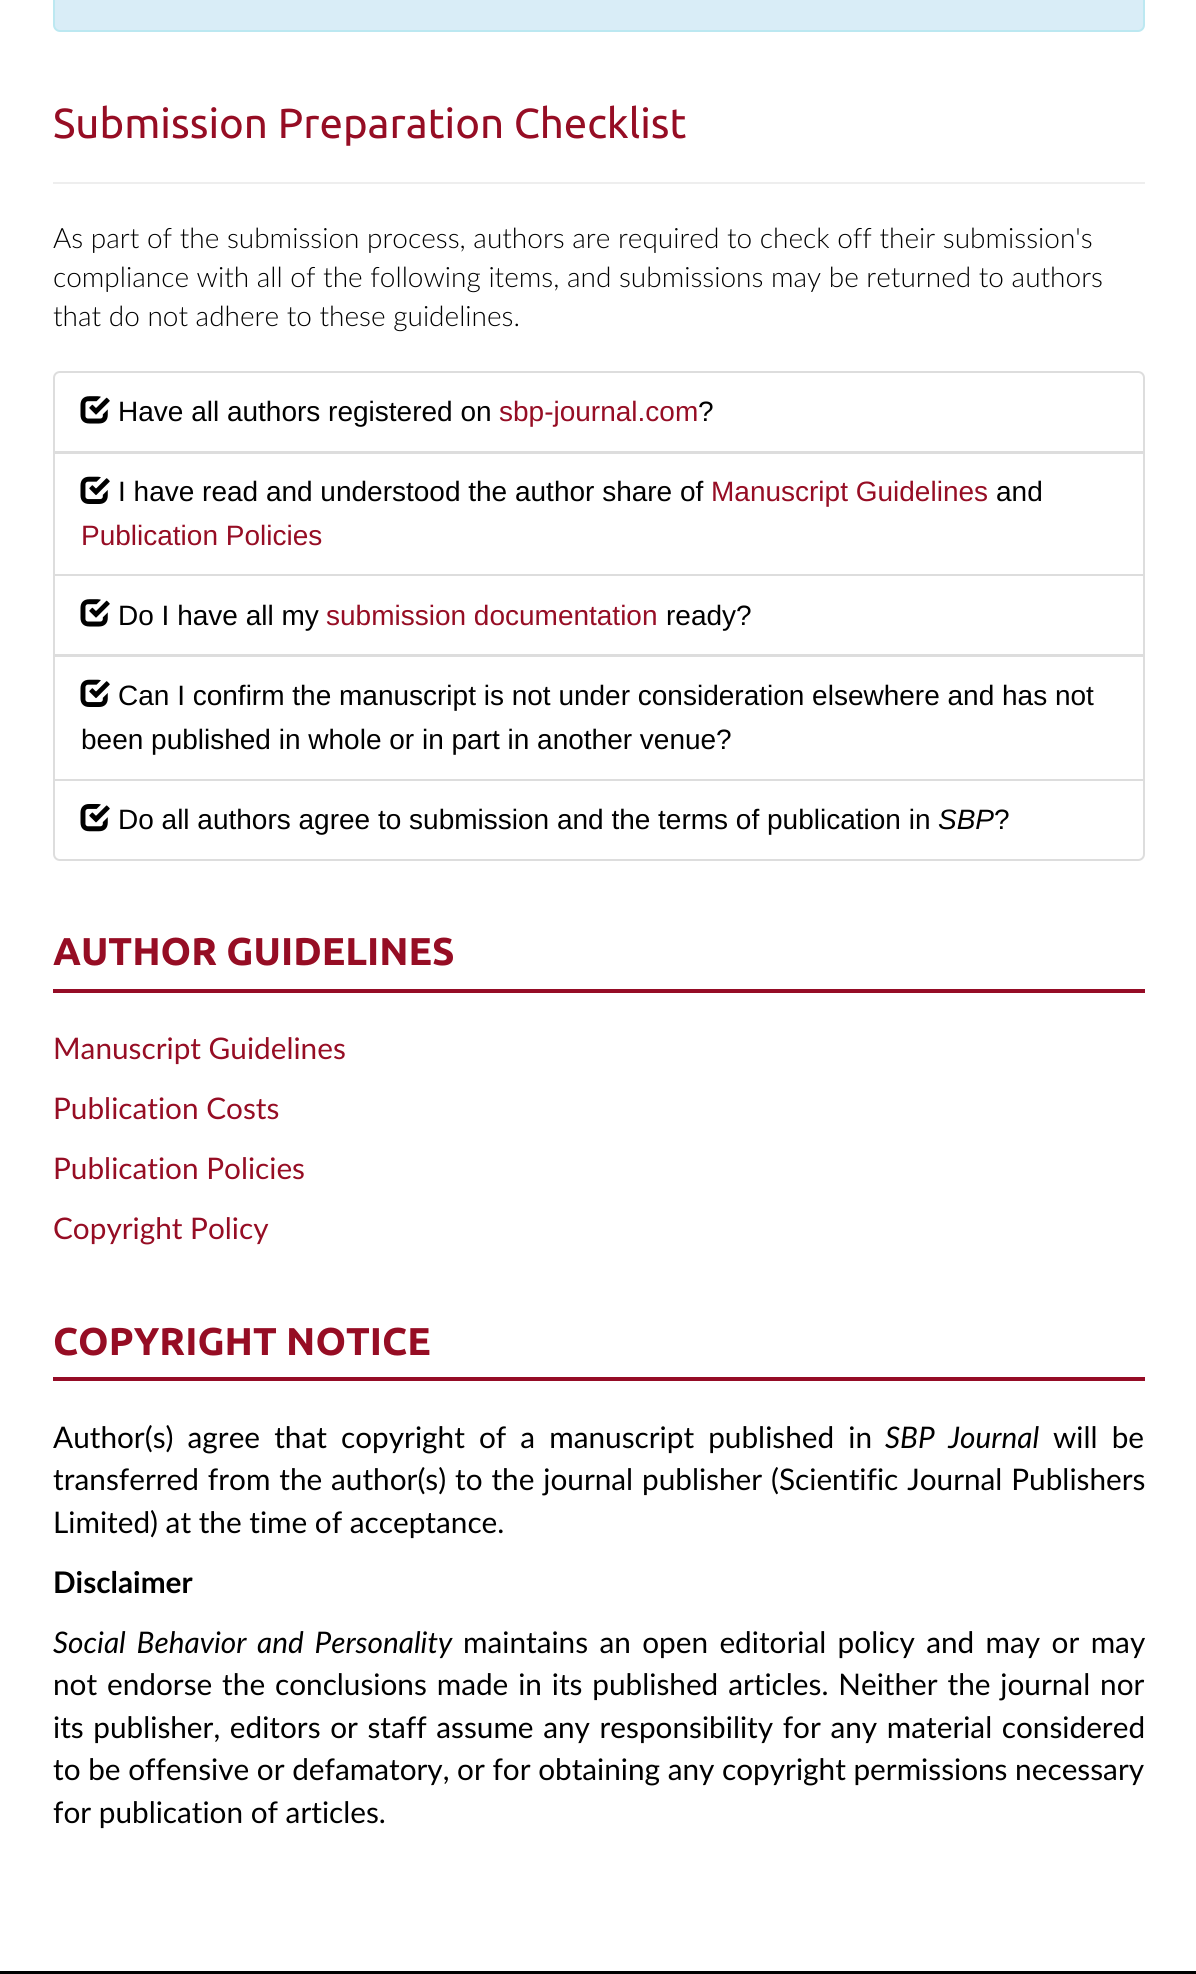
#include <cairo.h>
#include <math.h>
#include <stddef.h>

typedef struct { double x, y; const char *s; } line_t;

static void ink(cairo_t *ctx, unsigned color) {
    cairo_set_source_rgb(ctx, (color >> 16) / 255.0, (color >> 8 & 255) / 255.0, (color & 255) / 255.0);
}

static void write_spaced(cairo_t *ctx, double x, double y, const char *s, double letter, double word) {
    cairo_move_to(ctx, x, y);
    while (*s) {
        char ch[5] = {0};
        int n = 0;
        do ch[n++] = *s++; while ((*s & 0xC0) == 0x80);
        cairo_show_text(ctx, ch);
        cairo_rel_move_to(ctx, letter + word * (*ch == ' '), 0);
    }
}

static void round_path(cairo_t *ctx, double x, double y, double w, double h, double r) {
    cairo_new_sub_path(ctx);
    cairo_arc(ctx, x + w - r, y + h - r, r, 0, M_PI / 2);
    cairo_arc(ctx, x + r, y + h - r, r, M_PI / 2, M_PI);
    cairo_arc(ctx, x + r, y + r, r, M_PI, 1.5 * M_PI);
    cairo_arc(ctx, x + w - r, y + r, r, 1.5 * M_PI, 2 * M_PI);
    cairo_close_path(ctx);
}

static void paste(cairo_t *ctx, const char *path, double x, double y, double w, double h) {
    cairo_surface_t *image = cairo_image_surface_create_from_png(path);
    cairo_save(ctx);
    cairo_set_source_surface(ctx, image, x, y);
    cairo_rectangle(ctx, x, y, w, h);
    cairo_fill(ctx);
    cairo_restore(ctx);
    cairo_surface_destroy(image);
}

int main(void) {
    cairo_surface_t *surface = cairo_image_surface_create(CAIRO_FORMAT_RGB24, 1196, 1974);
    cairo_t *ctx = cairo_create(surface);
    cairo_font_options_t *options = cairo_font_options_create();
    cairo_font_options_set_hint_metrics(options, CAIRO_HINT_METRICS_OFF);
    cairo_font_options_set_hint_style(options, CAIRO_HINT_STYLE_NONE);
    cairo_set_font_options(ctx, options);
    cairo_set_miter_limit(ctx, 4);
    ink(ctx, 0xFFFFFF);
    cairo_paint(ctx);
    ink(ctx, 0xD9EDF7);
    round_path(ctx, 54, -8, 1090, 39, 6);
    cairo_fill_preserve(ctx);
    ink(ctx, 0xBCE8F1);
    cairo_stroke(ctx);
    ink(ctx, 0xEEEEEE);
    cairo_rectangle(ctx, 53, 182, 1092, 2);
    cairo_fill(ctx);
    cairo_select_font_face(ctx, "Ubuntu", CAIRO_FONT_SLANT_NORMAL, CAIRO_FONT_WEIGHT_NORMAL);
    cairo_set_font_size(ctx, 42);
    ink(ctx, 0x960D24);
    cairo_move_to(ctx, 53, 138);
    cairo_show_text(ctx, "Submission Preparation Checklist");
    cairo_select_font_face(ctx, "Lato Light", CAIRO_FONT_SLANT_NORMAL, CAIRO_FONT_WEIGHT_NORMAL);
    cairo_set_font_size(ctx, 28);
    ink(ctx, 0x000000);
    {
        static const line_t items[] = {
            {53, 248, "As part of the submission process, authors are required to check off their submission's"},
            {53, 287, "compliance with all of the following items, and submissions may be returned to authors"},
            {53, 326, "that do not adhere to these guidelines."},
        };
        for (size_t i = 0; i < sizeof items / sizeof *items; i++) {
            cairo_move_to(ctx, items[i].x, items[i].y);
            cairo_show_text(ctx, items[i].s);
        }
    }
    cairo_new_path(ctx);
    cairo_move_to(ctx, 60, 372);
    cairo_line_to(ctx, 1138, 372);
    cairo_curve_to(ctx, 1141.5, 372, 1144, 374.5, 1144, 378);
    cairo_line_to(ctx, 1144, 452);
    cairo_line_to(ctx, 54, 452);
    cairo_line_to(ctx, 54, 378);
    cairo_curve_to(ctx, 54, 374.5, 56.5, 372, 60, 372);
    cairo_close_path(ctx);
    ink(ctx, 0xDDDDDD);
    cairo_stroke(ctx);
    paste(ctx, "media/1.png", 80, 396, 30, 28);
    cairo_select_font_face(ctx, "Liberation Sans", CAIRO_FONT_SLANT_NORMAL, CAIRO_FONT_WEIGHT_NORMAL);
    ink(ctx, 0x000000);
    cairo_move_to(ctx, 118, 421);
    cairo_show_text(ctx, "Have all authors registered on");
    ink(ctx, 0x960D24);
    cairo_move_to(ctx, 499, 421);
    cairo_show_text(ctx, "sbp-journal.com");
    ink(ctx, 0x000000);
    cairo_move_to(ctx, 698, 421);
    cairo_show_text(ctx, "?");
    cairo_rectangle(ctx, 54, 453, 1090, 122);
    ink(ctx, 0xDDDDDD);
    cairo_stroke(ctx);
    paste(ctx, "media/2.png", 80, 476, 30, 28);
    ink(ctx, 0x000000);
    cairo_move_to(ctx, 118, 501);
    cairo_show_text(ctx, "I have read and understood the author share of");
    ink(ctx, 0x960D24);
    cairo_move_to(ctx, 711, 501);
    cairo_show_text(ctx, "Manuscript Guidelines");
    ink(ctx, 0x000000);
    cairo_move_to(ctx, 996, 501);
    cairo_show_text(ctx, "and");
    ink(ctx, 0x960D24);
    cairo_move_to(ctx, 81, 545);
    cairo_show_text(ctx, "Publication Policies");
    cairo_rectangle(ctx, 54, 575, 1090, 80);
    ink(ctx, 0xDDDDDD);
    cairo_stroke(ctx);
    paste(ctx, "media/1.png", 80, 599, 30, 28);
    ink(ctx, 0x000000);
    cairo_move_to(ctx, 118, 625);
    cairo_show_text(ctx, "Do I have all my");
    ink(ctx, 0x960D24);
    cairo_move_to(ctx, 326, 625);
    cairo_show_text(ctx, "submission documentation");
    ink(ctx, 0x000000);
    cairo_move_to(ctx, 666, 625);
    cairo_show_text(ctx, "ready?");
    cairo_rectangle(ctx, 54, 656, 1090, 124);
    ink(ctx, 0xDDDDDD);
    cairo_stroke(ctx);
    paste(ctx, "media/2.png", 80, 679, 30, 28);
    ink(ctx, 0x000000);
    cairo_move_to(ctx, 118, 705);
    cairo_show_text(ctx, "Can I confirm the manuscript is not under consideration elsewhere and has not");
    cairo_move_to(ctx, 81, 749);
    cairo_show_text(ctx, "been published in whole or in part in another venue?");
    ink(ctx, 0xFFFFFF);
    cairo_new_path(ctx);
    cairo_move_to(ctx, 54, 780);
    cairo_line_to(ctx, 1144, 780);
    cairo_line_to(ctx, 1144, 854);
    cairo_curve_to(ctx, 1144, 857.5, 1141.5, 860, 1138, 860);
    cairo_line_to(ctx, 60, 860);
    cairo_curve_to(ctx, 56.5, 860, 54, 857.5, 54, 854);
    cairo_close_path(ctx);
    cairo_fill_preserve(ctx);
    ink(ctx, 0xDDDDDD);
    cairo_stroke(ctx);
    paste(ctx, "media/3.png", 80, 804, 30, 28);
    ink(ctx, 0x000000);
    cairo_move_to(ctx, 118, 829);
    cairo_show_text(ctx, "Do all authors agree to submission and the terms of publication in");
    cairo_select_font_face(ctx, "Liberation Sans", CAIRO_FONT_SLANT_ITALIC, CAIRO_FONT_WEIGHT_NORMAL);
    cairo_move_to(ctx, 938, 829);
    cairo_show_text(ctx, "SBP");
    cairo_select_font_face(ctx, "Liberation Sans", CAIRO_FONT_SLANT_NORMAL, CAIRO_FONT_WEIGHT_NORMAL);
    cairo_move_to(ctx, 994, 829);
    cairo_show_text(ctx, "?");
    ink(ctx, 0x950C26);
    cairo_rectangle(ctx, 53, 989, 1092, 4);
    cairo_fill(ctx);
    cairo_select_font_face(ctx, "Ubuntu", CAIRO_FONT_SLANT_NORMAL, CAIRO_FONT_WEIGHT_BOLD);
    cairo_set_font_size(ctx, 38.75);
    ink(ctx, 0x960D24);
    cairo_move_to(ctx, 53, 965);
    cairo_show_text(ctx, "AUTHOR GUIDELINES");
    cairo_select_font_face(ctx, "Lato", CAIRO_FONT_SLANT_NORMAL, CAIRO_FONT_WEIGHT_NORMAL);
    cairo_set_font_size(ctx, 29.75);
    {
        static const line_t items[] = {
            {53, 1059, "Manuscript Guidelines"},
            {53, 1119, "Publication Costs"},
            {53, 1179, "Publication Policies"},
            {53, 1239, "Copyright Policy"},
        };
        for (size_t i = 0; i < sizeof items / sizeof *items; i++) {
            cairo_move_to(ctx, items[i].x, items[i].y);
            cairo_show_text(ctx, items[i].s);
        }
    }
    ink(ctx, 0x950C26);
    cairo_rectangle(ctx, 53, 1377, 1092, 4);
    cairo_fill(ctx);
    cairo_select_font_face(ctx, "Ubuntu", CAIRO_FONT_SLANT_NORMAL, CAIRO_FONT_WEIGHT_BOLD);
    cairo_set_font_size(ctx, 38.75);
    ink(ctx, 0x960D24);
    cairo_move_to(ctx, 53, 1355);
    cairo_show_text(ctx, "COPYRIGHT NOTICE");
    cairo_select_font_face(ctx, "Lato", CAIRO_FONT_SLANT_NORMAL, CAIRO_FONT_WEIGHT_NORMAL);
    cairo_set_font_size(ctx, 29.75);
    ink(ctx, 0x000000);
    write_spaced(ctx, 53, 1448, "Author(s) agree that copyright of a manuscript published in", 0, 6.5);
    cairo_select_font_face(ctx, "Lato", CAIRO_FONT_SLANT_ITALIC, CAIRO_FONT_WEIGHT_NORMAL);
    write_spaced(ctx, 885, 1448, "SBP Journal", 0, 6.5);
    cairo_select_font_face(ctx, "Lato", CAIRO_FONT_SLANT_NORMAL, CAIRO_FONT_WEIGHT_NORMAL);
    write_spaced(ctx, 1053, 1448, "will be", 0, 6.5);
    write_spaced(ctx, 53, 1490, "transferred from the author(s) to the journal publisher (Scientific Journal Publishers", 0, 1.25);
    cairo_move_to(ctx, 53, 1533);
    cairo_show_text(ctx, "Limited) at the time of acceptance.");
    cairo_select_font_face(ctx, "Lato", CAIRO_FONT_SLANT_NORMAL, CAIRO_FONT_WEIGHT_BOLD);
    cairo_move_to(ctx, 53, 1593);
    cairo_show_text(ctx, "Disclaimer");
    cairo_select_font_face(ctx, "Lato", CAIRO_FONT_SLANT_ITALIC, CAIRO_FONT_WEIGHT_NORMAL);
    write_spaced(ctx, 53, 1653, "Social Behavior and Personality", 0, 3.75);
    cairo_select_font_face(ctx, "Lato", CAIRO_FONT_SLANT_NORMAL, CAIRO_FONT_WEIGHT_NORMAL);
    write_spaced(ctx, 463, 1653, "maintains an open editorial policy and may or may", 0, 3.75);
    write_spaced(ctx, 53, 1695, "not endorse the conclusions made in its published articles. Neither the journal nor", 0, 2.25);
    write_spaced(ctx, 53, 1738, "its publisher, editors or staff assume any responsibility for any material considered", 0, 2);
    cairo_move_to(ctx, 53, 1780);
    cairo_show_text(ctx, "to be offensive or defamatory, or for obtaining any copyright permissions necessary");
    cairo_move_to(ctx, 53, 1823);
    cairo_show_text(ctx, "for publication of articles.");
    cairo_rectangle(ctx, 0, 1971, 1196, 3);
    cairo_fill(ctx);
    cairo_surface_write_to_png(surface, "image.png");
    cairo_font_options_destroy(options);
    cairo_destroy(ctx);
    cairo_surface_destroy(surface);
    return 0;
}
